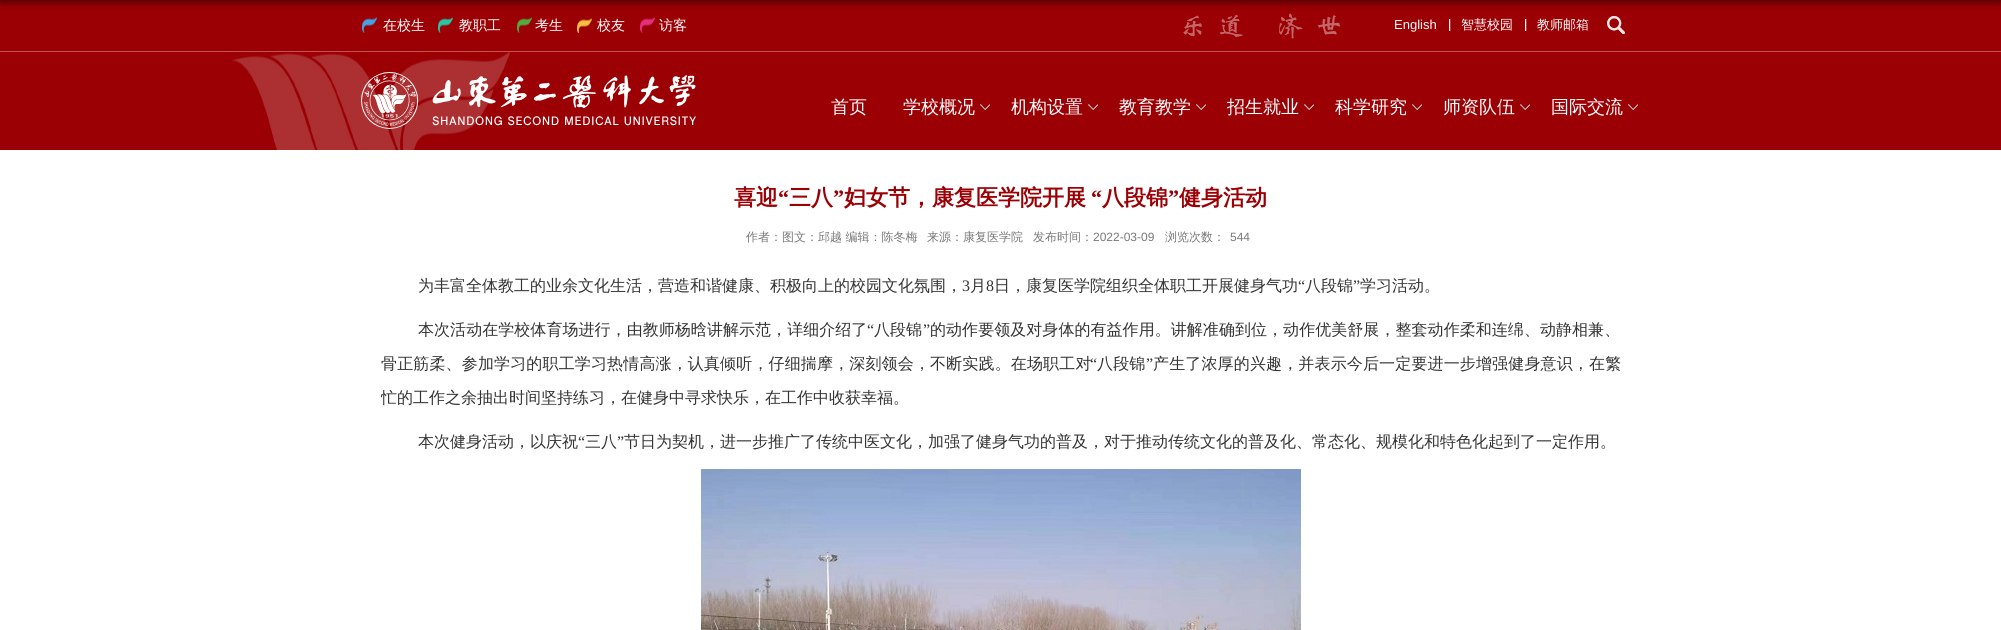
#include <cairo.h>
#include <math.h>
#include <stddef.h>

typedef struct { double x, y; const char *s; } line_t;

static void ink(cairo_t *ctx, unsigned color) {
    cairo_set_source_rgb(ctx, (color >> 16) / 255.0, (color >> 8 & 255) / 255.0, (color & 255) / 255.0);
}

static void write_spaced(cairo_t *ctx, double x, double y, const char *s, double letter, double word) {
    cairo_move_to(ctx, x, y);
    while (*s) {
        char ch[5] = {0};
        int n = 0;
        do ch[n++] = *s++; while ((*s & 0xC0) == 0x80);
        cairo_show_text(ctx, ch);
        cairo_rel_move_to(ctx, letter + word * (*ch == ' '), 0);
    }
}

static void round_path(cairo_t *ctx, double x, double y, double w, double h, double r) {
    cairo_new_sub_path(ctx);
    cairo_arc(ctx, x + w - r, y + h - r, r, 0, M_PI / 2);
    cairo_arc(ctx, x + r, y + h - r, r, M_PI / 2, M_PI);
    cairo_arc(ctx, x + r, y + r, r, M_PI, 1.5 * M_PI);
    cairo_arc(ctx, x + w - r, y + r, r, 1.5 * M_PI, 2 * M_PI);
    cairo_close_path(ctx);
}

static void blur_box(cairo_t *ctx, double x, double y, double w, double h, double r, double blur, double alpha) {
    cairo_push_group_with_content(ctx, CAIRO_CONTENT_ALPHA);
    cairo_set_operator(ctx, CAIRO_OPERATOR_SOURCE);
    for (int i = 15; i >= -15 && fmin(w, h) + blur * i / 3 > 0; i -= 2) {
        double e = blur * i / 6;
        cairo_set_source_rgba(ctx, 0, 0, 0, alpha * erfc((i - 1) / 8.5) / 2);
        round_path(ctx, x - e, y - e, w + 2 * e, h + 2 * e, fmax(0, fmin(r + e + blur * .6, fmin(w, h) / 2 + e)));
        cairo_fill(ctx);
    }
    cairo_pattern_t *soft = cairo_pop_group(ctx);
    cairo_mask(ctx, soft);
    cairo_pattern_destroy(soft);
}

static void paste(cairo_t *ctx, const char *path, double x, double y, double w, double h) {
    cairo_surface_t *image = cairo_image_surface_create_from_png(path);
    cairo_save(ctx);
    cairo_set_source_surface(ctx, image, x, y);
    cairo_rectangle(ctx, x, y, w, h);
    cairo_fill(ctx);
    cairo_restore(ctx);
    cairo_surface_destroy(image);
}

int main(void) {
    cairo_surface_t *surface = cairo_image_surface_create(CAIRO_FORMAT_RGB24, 2001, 630);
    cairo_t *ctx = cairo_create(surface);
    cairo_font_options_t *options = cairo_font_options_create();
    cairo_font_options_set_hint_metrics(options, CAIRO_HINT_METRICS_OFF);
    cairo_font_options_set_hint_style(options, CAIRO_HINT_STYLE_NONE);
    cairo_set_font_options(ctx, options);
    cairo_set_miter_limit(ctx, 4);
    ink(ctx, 0xFFFFFF);
    cairo_paint(ctx);
    ink(ctx, 0x9B0004);
    cairo_rectangle(ctx, 0, 0, 2001, 51);
    cairo_fill(ctx);
    paste(ctx, "media/6.png", 1183, 13, 157, 26);
    ink(ctx, 0x000000);
    blur_box(ctx, 0, -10, 2001, 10, 0, 5, 0.8);
    paste(ctx, "media/1.png", 362, 17, 15, 16);
    cairo_select_font_face(ctx, "WenQuanYi Zen Hei Medium", CAIRO_FONT_SLANT_NORMAL, CAIRO_FONT_WEIGHT_NORMAL);
    cairo_set_font_size(ctx, 14);
    ink(ctx, 0xFFFFFF);
    cairo_move_to(ctx, 383, 30);
    cairo_show_text(ctx, "在校生");
    paste(ctx, "media/2.png", 438, 17, 15, 16);
    cairo_move_to(ctx, 459, 30);
    cairo_show_text(ctx, "教职工");
    paste(ctx, "media/3.png", 517, 17, 15, 16);
    cairo_move_to(ctx, 535, 30);
    cairo_show_text(ctx, "考生");
    paste(ctx, "media/4.png", 577, 18, 15, 15);
    cairo_move_to(ctx, 597, 30);
    cairo_show_text(ctx, "校友");
    paste(ctx, "media/5.png", 640, 17, 15, 16);
    cairo_move_to(ctx, 659, 30);
    cairo_show_text(ctx, "访客");
    cairo_select_font_face(ctx, "Liberation Sans", CAIRO_FONT_SLANT_NORMAL, CAIRO_FONT_WEIGHT_NORMAL);
    cairo_set_font_size(ctx, 13);
    cairo_move_to(ctx, 1394, 29);
    cairo_show_text(ctx, "English");
    paste(ctx, "media/7.png", 1449, 19, 2, 12);
    cairo_select_font_face(ctx, "WenQuanYi Zen Hei Medium", CAIRO_FONT_SLANT_NORMAL, CAIRO_FONT_WEIGHT_NORMAL);
    cairo_move_to(ctx, 1461, 29);
    cairo_show_text(ctx, "智慧校园");
    paste(ctx, "media/7.png", 1525, 19, 2, 12);
    cairo_move_to(ctx, 1537, 29);
    cairo_show_text(ctx, "教师邮箱");
    paste(ctx, "media/8.png", 1607, 16, 18, 18);
    paste(ctx, "media/9.png", 1607, 16, 18, 18);
    ink(ctx, 0x9B0004);
    cairo_rectangle(ctx, 0, 52, 2001, 98);
    cairo_fill(ctx);
    paste(ctx, "media/10.png", 232, 52, 278, 98);
    ink(ctx, 0xC55355);
    cairo_rectangle(ctx, 0, 51, 2001, 1);
    cairo_fill(ctx);
    paste(ctx, "media/11.png", 361, 72, 335, 57);
    cairo_set_font_size(ctx, 18);
    ink(ctx, 0xFFFFFF);
    cairo_move_to(ctx, 831, 113);
    cairo_show_text(ctx, "首页");
    cairo_move_to(ctx, 903, 113);
    cairo_show_text(ctx, "学校概况");
    paste(ctx, "media/12.png", 980, 104, 10, 6);
    cairo_move_to(ctx, 1011, 113);
    cairo_show_text(ctx, "机构设置");
    paste(ctx, "media/12.png", 1088, 104, 10, 6);
    cairo_move_to(ctx, 1119, 113);
    cairo_show_text(ctx, "教育教学");
    paste(ctx, "media/12.png", 1196, 104, 10, 6);
    cairo_move_to(ctx, 1227, 113);
    cairo_show_text(ctx, "招生就业");
    paste(ctx, "media/12.png", 1304, 104, 10, 6);
    cairo_move_to(ctx, 1335, 113);
    cairo_show_text(ctx, "科学研究");
    paste(ctx, "media/12.png", 1412, 104, 10, 6);
    cairo_move_to(ctx, 1443, 113);
    cairo_show_text(ctx, "师资队伍");
    paste(ctx, "media/12.png", 1520, 104, 10, 6);
    cairo_move_to(ctx, 1551, 113);
    cairo_show_text(ctx, "国际交流");
    paste(ctx, "media/12.png", 1628, 104, 10, 6);
    cairo_select_font_face(ctx, "WenQuanYi Zen Hei", CAIRO_FONT_SLANT_NORMAL, CAIRO_FONT_WEIGHT_BOLD);
    cairo_set_font_size(ctx, 22);
    ink(ctx, 0x9A0004);
    cairo_move_to(ctx, 734, 205);
    cairo_show_text(ctx, "喜迎");
    cairo_select_font_face(ctx, "Liberation Serif", CAIRO_FONT_SLANT_NORMAL, CAIRO_FONT_WEIGHT_BOLD);
    cairo_move_to(ctx, 778, 205);
    cairo_show_text(ctx, "“");
    cairo_select_font_face(ctx, "WenQuanYi Zen Hei", CAIRO_FONT_SLANT_NORMAL, CAIRO_FONT_WEIGHT_BOLD);
    cairo_move_to(ctx, 789, 205);
    cairo_show_text(ctx, "三八");
    cairo_select_font_face(ctx, "Liberation Serif", CAIRO_FONT_SLANT_NORMAL, CAIRO_FONT_WEIGHT_BOLD);
    cairo_move_to(ctx, 833, 205);
    cairo_show_text(ctx, "”");
    cairo_select_font_face(ctx, "WenQuanYi Zen Hei", CAIRO_FONT_SLANT_NORMAL, CAIRO_FONT_WEIGHT_BOLD);
    cairo_move_to(ctx, 844, 205);
    cairo_show_text(ctx, "妇女节，康复医学院开展");
    cairo_select_font_face(ctx, "Liberation Serif", CAIRO_FONT_SLANT_NORMAL, CAIRO_FONT_WEIGHT_BOLD);
    cairo_move_to(ctx, 1091, 205);
    cairo_show_text(ctx, "“");
    cairo_select_font_face(ctx, "WenQuanYi Zen Hei", CAIRO_FONT_SLANT_NORMAL, CAIRO_FONT_WEIGHT_BOLD);
    cairo_move_to(ctx, 1102, 205);
    cairo_show_text(ctx, "八段锦");
    cairo_select_font_face(ctx, "Liberation Serif", CAIRO_FONT_SLANT_NORMAL, CAIRO_FONT_WEIGHT_BOLD);
    cairo_move_to(ctx, 1168, 205);
    cairo_show_text(ctx, "”");
    cairo_select_font_face(ctx, "WenQuanYi Zen Hei", CAIRO_FONT_SLANT_NORMAL, CAIRO_FONT_WEIGHT_BOLD);
    cairo_move_to(ctx, 1179, 205);
    cairo_show_text(ctx, "健身活动");
    cairo_select_font_face(ctx, "WenQuanYi Zen Hei Medium", CAIRO_FONT_SLANT_NORMAL, CAIRO_FONT_WEIGHT_NORMAL);
    cairo_set_font_size(ctx, 12);
    ink(ctx, 0x787878);
    {
        static const line_t items[] = {
            {746, 241, "作者：图文：邱越 编辑：陈冬梅"},
            {927, 241, "来源：康复医学院"},
            {1033, 241, "发布时间："},
        };
        for (size_t i = 0; i < sizeof items / sizeof *items; i++) {
            cairo_move_to(ctx, items[i].x, items[i].y);
            cairo_show_text(ctx, items[i].s);
        }
    }
    cairo_select_font_face(ctx, "Liberation Sans", CAIRO_FONT_SLANT_NORMAL, CAIRO_FONT_WEIGHT_NORMAL);
    cairo_move_to(ctx, 1093, 241);
    cairo_show_text(ctx, "2022-03-09");
    cairo_select_font_face(ctx, "WenQuanYi Zen Hei Medium", CAIRO_FONT_SLANT_NORMAL, CAIRO_FONT_WEIGHT_NORMAL);
    cairo_move_to(ctx, 1165, 241);
    cairo_show_text(ctx, "浏览次数：");
    cairo_select_font_face(ctx, "Liberation Sans", CAIRO_FONT_SLANT_NORMAL, CAIRO_FONT_WEIGHT_NORMAL);
    cairo_move_to(ctx, 1230, 241);
    cairo_show_text(ctx, "544");
    cairo_select_font_face(ctx, "WenQuanYi Zen Hei Medium", CAIRO_FONT_SLANT_NORMAL, CAIRO_FONT_WEIGHT_NORMAL);
    cairo_set_font_size(ctx, 16);
    ink(ctx, 0x333333);
    cairo_move_to(ctx, 418, 291);
    cairo_show_text(ctx, "为丰富全体教工的业余文化生活，营造和谐健康、积极向上的校园文化氛围，");
    cairo_select_font_face(ctx, "Liberation Serif", CAIRO_FONT_SLANT_NORMAL, CAIRO_FONT_WEIGHT_NORMAL);
    cairo_move_to(ctx, 962, 291);
    cairo_show_text(ctx, "3");
    cairo_select_font_face(ctx, "WenQuanYi Zen Hei Medium", CAIRO_FONT_SLANT_NORMAL, CAIRO_FONT_WEIGHT_NORMAL);
    cairo_move_to(ctx, 970, 291);
    cairo_show_text(ctx, "月");
    cairo_select_font_face(ctx, "Liberation Serif", CAIRO_FONT_SLANT_NORMAL, CAIRO_FONT_WEIGHT_NORMAL);
    cairo_move_to(ctx, 986, 291);
    cairo_show_text(ctx, "8");
    cairo_select_font_face(ctx, "WenQuanYi Zen Hei Medium", CAIRO_FONT_SLANT_NORMAL, CAIRO_FONT_WEIGHT_NORMAL);
    cairo_move_to(ctx, 994, 291);
    cairo_show_text(ctx, "日，康复医学院组织全体职工开展健身气功");
    cairo_select_font_face(ctx, "Liberation Serif", CAIRO_FONT_SLANT_NORMAL, CAIRO_FONT_WEIGHT_NORMAL);
    cairo_move_to(ctx, 1298, 291);
    cairo_show_text(ctx, "“");
    cairo_select_font_face(ctx, "WenQuanYi Zen Hei Medium", CAIRO_FONT_SLANT_NORMAL, CAIRO_FONT_WEIGHT_NORMAL);
    cairo_move_to(ctx, 1305, 291);
    cairo_show_text(ctx, "八段锦");
    cairo_select_font_face(ctx, "Liberation Serif", CAIRO_FONT_SLANT_NORMAL, CAIRO_FONT_WEIGHT_NORMAL);
    cairo_move_to(ctx, 1353, 291);
    cairo_show_text(ctx, "”");
    cairo_select_font_face(ctx, "WenQuanYi Zen Hei Medium", CAIRO_FONT_SLANT_NORMAL, CAIRO_FONT_WEIGHT_NORMAL);
    cairo_move_to(ctx, 1360, 291);
    cairo_show_text(ctx, "学习活动。");
    write_spaced(ctx, 418, 335, "本次活动在学校体育场进行，由教师杨晗讲解示范，详细介绍了", 0.05, 0);
    cairo_select_font_face(ctx, "Liberation Serif", CAIRO_FONT_SLANT_NORMAL, CAIRO_FONT_WEIGHT_NORMAL);
    write_spaced(ctx, 867, 335, "“", 0.05, 0);
    cairo_select_font_face(ctx, "WenQuanYi Zen Hei Medium", CAIRO_FONT_SLANT_NORMAL, CAIRO_FONT_WEIGHT_NORMAL);
    write_spaced(ctx, 874, 335, "八段锦", 0.05, 0);
    cairo_select_font_face(ctx, "Liberation Serif", CAIRO_FONT_SLANT_NORMAL, CAIRO_FONT_WEIGHT_NORMAL);
    write_spaced(ctx, 923, 335, "”", 0.05, 0);
    cairo_select_font_face(ctx, "WenQuanYi Zen Hei Medium", CAIRO_FONT_SLANT_NORMAL, CAIRO_FONT_WEIGHT_NORMAL);
    write_spaced(ctx, 930, 335, "的动作要领及对身体的有益作用。讲解准确到位，动作优美舒展，整套动作柔和连绵、动静相兼、", 0.05, 0);
    write_spaced(ctx, 381, 369, "骨正筋柔、参加学习的职工学习热情高涨，认真倾听，仔细揣摩，深刻领会，不断实践。在场职工对", 0.15, 0);
    cairo_select_font_face(ctx, "Liberation Serif", CAIRO_FONT_SLANT_NORMAL, CAIRO_FONT_WEIGHT_NORMAL);
    write_spaced(ctx, 1090, 369, "“", 0.15, 0);
    cairo_select_font_face(ctx, "WenQuanYi Zen Hei Medium", CAIRO_FONT_SLANT_NORMAL, CAIRO_FONT_WEIGHT_NORMAL);
    write_spaced(ctx, 1097, 369, "八段锦", 0.15, 0);
    cairo_select_font_face(ctx, "Liberation Serif", CAIRO_FONT_SLANT_NORMAL, CAIRO_FONT_WEIGHT_NORMAL);
    write_spaced(ctx, 1146, 369, "”", 0.15, 0);
    cairo_select_font_face(ctx, "WenQuanYi Zen Hei Medium", CAIRO_FONT_SLANT_NORMAL, CAIRO_FONT_WEIGHT_NORMAL);
    write_spaced(ctx, 1153, 369, "产生了浓厚的兴趣，并表示今后一定要进一步增强健身意识，在繁", 0.15, 0);
    cairo_save(ctx);
    cairo_rectangle(ctx, 381, 269, 1240, 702);
    cairo_clip(ctx);
    cairo_move_to(ctx, 381, 403);
    cairo_show_text(ctx, "忙的工作之余抽出时间坚持练习，在健身中寻求快乐，在工作中收获幸福。");
    cairo_restore(ctx);
    cairo_move_to(ctx, 418, 447);
    cairo_show_text(ctx, "本次健身活动，以庆祝");
    cairo_select_font_face(ctx, "Liberation Serif", CAIRO_FONT_SLANT_NORMAL, CAIRO_FONT_WEIGHT_NORMAL);
    cairo_move_to(ctx, 578, 447);
    cairo_show_text(ctx, "“");
    cairo_select_font_face(ctx, "WenQuanYi Zen Hei Medium", CAIRO_FONT_SLANT_NORMAL, CAIRO_FONT_WEIGHT_NORMAL);
    cairo_move_to(ctx, 585, 447);
    cairo_show_text(ctx, "三八");
    cairo_select_font_face(ctx, "Liberation Serif", CAIRO_FONT_SLANT_NORMAL, CAIRO_FONT_WEIGHT_NORMAL);
    cairo_move_to(ctx, 617, 447);
    cairo_show_text(ctx, "”");
    cairo_select_font_face(ctx, "WenQuanYi Zen Hei Medium", CAIRO_FONT_SLANT_NORMAL, CAIRO_FONT_WEIGHT_NORMAL);
    cairo_move_to(ctx, 624, 447);
    cairo_show_text(ctx, "节日为契机，进一步推广了传统中医文化，加强了健身气功的普及，对于推动传统文化的普及化、常态化、规模化和特色化起到了一定作用。");
    paste(ctx, "media/13.png", 701, 469, 600, 161);
    cairo_surface_write_to_png(surface, "image.png");
    cairo_font_options_destroy(options);
    cairo_destroy(ctx);
    cairo_surface_destroy(surface);
    return 0;
}
